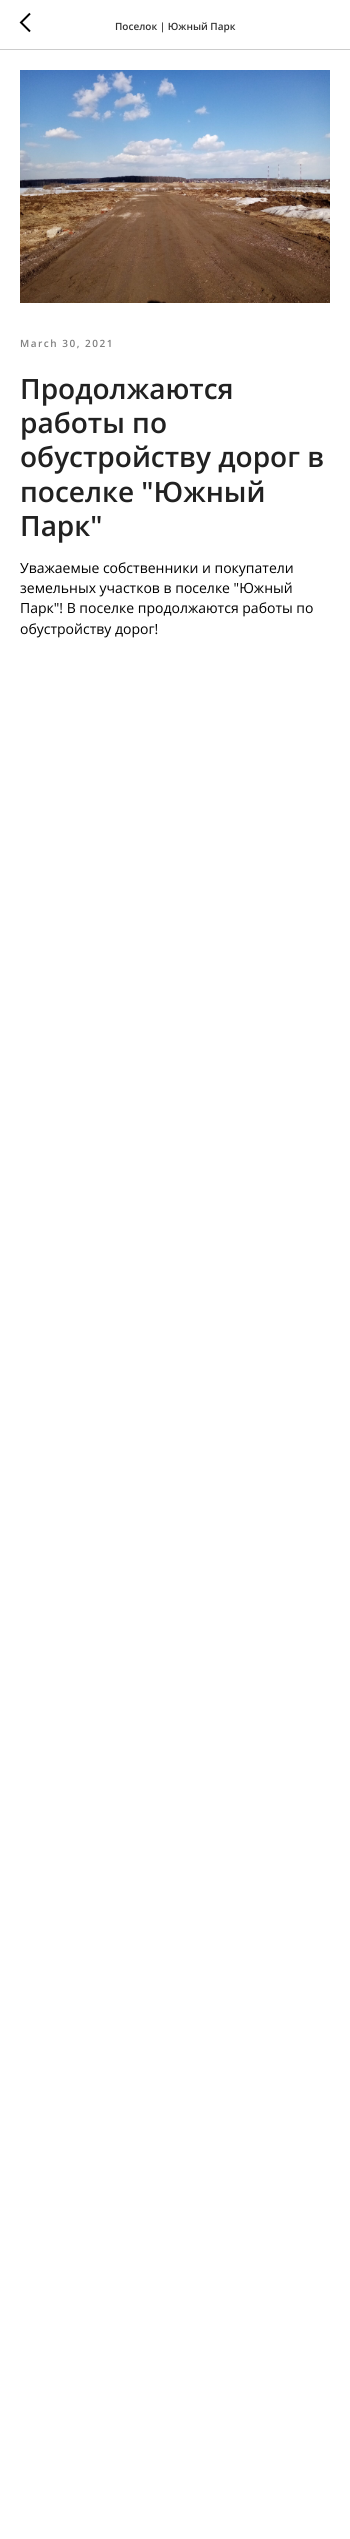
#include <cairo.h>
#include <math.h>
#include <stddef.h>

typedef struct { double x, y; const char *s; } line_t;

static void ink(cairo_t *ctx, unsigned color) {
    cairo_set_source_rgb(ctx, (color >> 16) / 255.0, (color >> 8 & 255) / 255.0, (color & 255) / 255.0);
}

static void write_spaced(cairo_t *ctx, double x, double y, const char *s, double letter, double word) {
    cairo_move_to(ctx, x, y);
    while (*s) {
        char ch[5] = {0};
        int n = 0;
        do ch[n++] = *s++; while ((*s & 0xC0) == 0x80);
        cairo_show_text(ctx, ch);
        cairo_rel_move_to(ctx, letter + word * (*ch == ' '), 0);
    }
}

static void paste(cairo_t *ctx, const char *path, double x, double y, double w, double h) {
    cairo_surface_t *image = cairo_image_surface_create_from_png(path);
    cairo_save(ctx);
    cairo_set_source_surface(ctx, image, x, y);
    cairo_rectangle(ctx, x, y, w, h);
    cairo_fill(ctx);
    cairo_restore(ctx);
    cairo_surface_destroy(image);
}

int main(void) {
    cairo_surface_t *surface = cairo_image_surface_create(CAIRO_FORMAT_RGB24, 350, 2539);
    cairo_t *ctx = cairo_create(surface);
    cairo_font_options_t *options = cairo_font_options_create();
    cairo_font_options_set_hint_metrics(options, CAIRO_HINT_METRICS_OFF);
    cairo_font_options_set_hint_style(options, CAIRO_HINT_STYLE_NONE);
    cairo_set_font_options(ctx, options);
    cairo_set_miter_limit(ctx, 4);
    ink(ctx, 0xFFFFFF);
    cairo_paint(ctx);
    ink(ctx, 0xCCCCCC);
    cairo_rectangle(ctx, 0, 49, 350, 1);
    cairo_fill(ctx);
    cairo_new_path(ctx);
    cairo_move_to(ctx, 30, 31.5);
    cairo_line_to(ctx, 21, 22.5);
    cairo_line_to(ctx, 30, 13.5);
    ink(ctx, 0x000000);
    cairo_stroke(ctx);
    cairo_select_font_face(ctx, "Open Sans SemiBold", CAIRO_FONT_SLANT_NORMAL, CAIRO_FONT_WEIGHT_NORMAL);
    cairo_set_font_size(ctx, 10);
    ink(ctx, 0x333333);
    cairo_move_to(ctx, 115, 30);
    cairo_show_text(ctx, "Поселок | Южный Парк");
    paste(ctx, "media/1.png", 20, 70, 310, 233);
    ink(ctx, 0x808080);
    write_spaced(ctx, 20, 347, "March 30, 2021", 1.5, 0);
    cairo_set_font_size(ctx, 28);
    ink(ctx, 0x212121);
    {
        static const line_t items[] = {
            {20, 399, "Продолжаются"},
            {20, 433, "работы по"},
            {20, 467, "обустройству дорог в"},
            {20, 502, "поселке \"Южный"},
            {20, 536, "Парк\""},
        };
        for (size_t i = 0; i < sizeof items / sizeof *items; i++) {
            cairo_move_to(ctx, items[i].x, items[i].y);
            cairo_show_text(ctx, items[i].s);
        }
    }
    cairo_select_font_face(ctx, "Open Sans", CAIRO_FONT_SLANT_NORMAL, CAIRO_FONT_WEIGHT_NORMAL);
    cairo_set_font_size(ctx, 14);
    ink(ctx, 0x000000);
    {
        static const line_t items[] = {
            {20, 573, "Уважаемые собственники и покупатели"},
            {20, 593, "земельных участков в поселке \"Южный"},
            {20, 613, "Парк\"! В поселке продолжаются работы по"},
            {20, 634, "обустройству дорог!"},
        };
        for (size_t i = 0; i < sizeof items / sizeof *items; i++) {
            cairo_move_to(ctx, items[i].x, items[i].y);
            cairo_show_text(ctx, items[i].s);
        }
    }
    cairo_surface_write_to_png(surface, "image.png");
    cairo_font_options_destroy(options);
    cairo_destroy(ctx);
    cairo_surface_destroy(surface);
    return 0;
}
